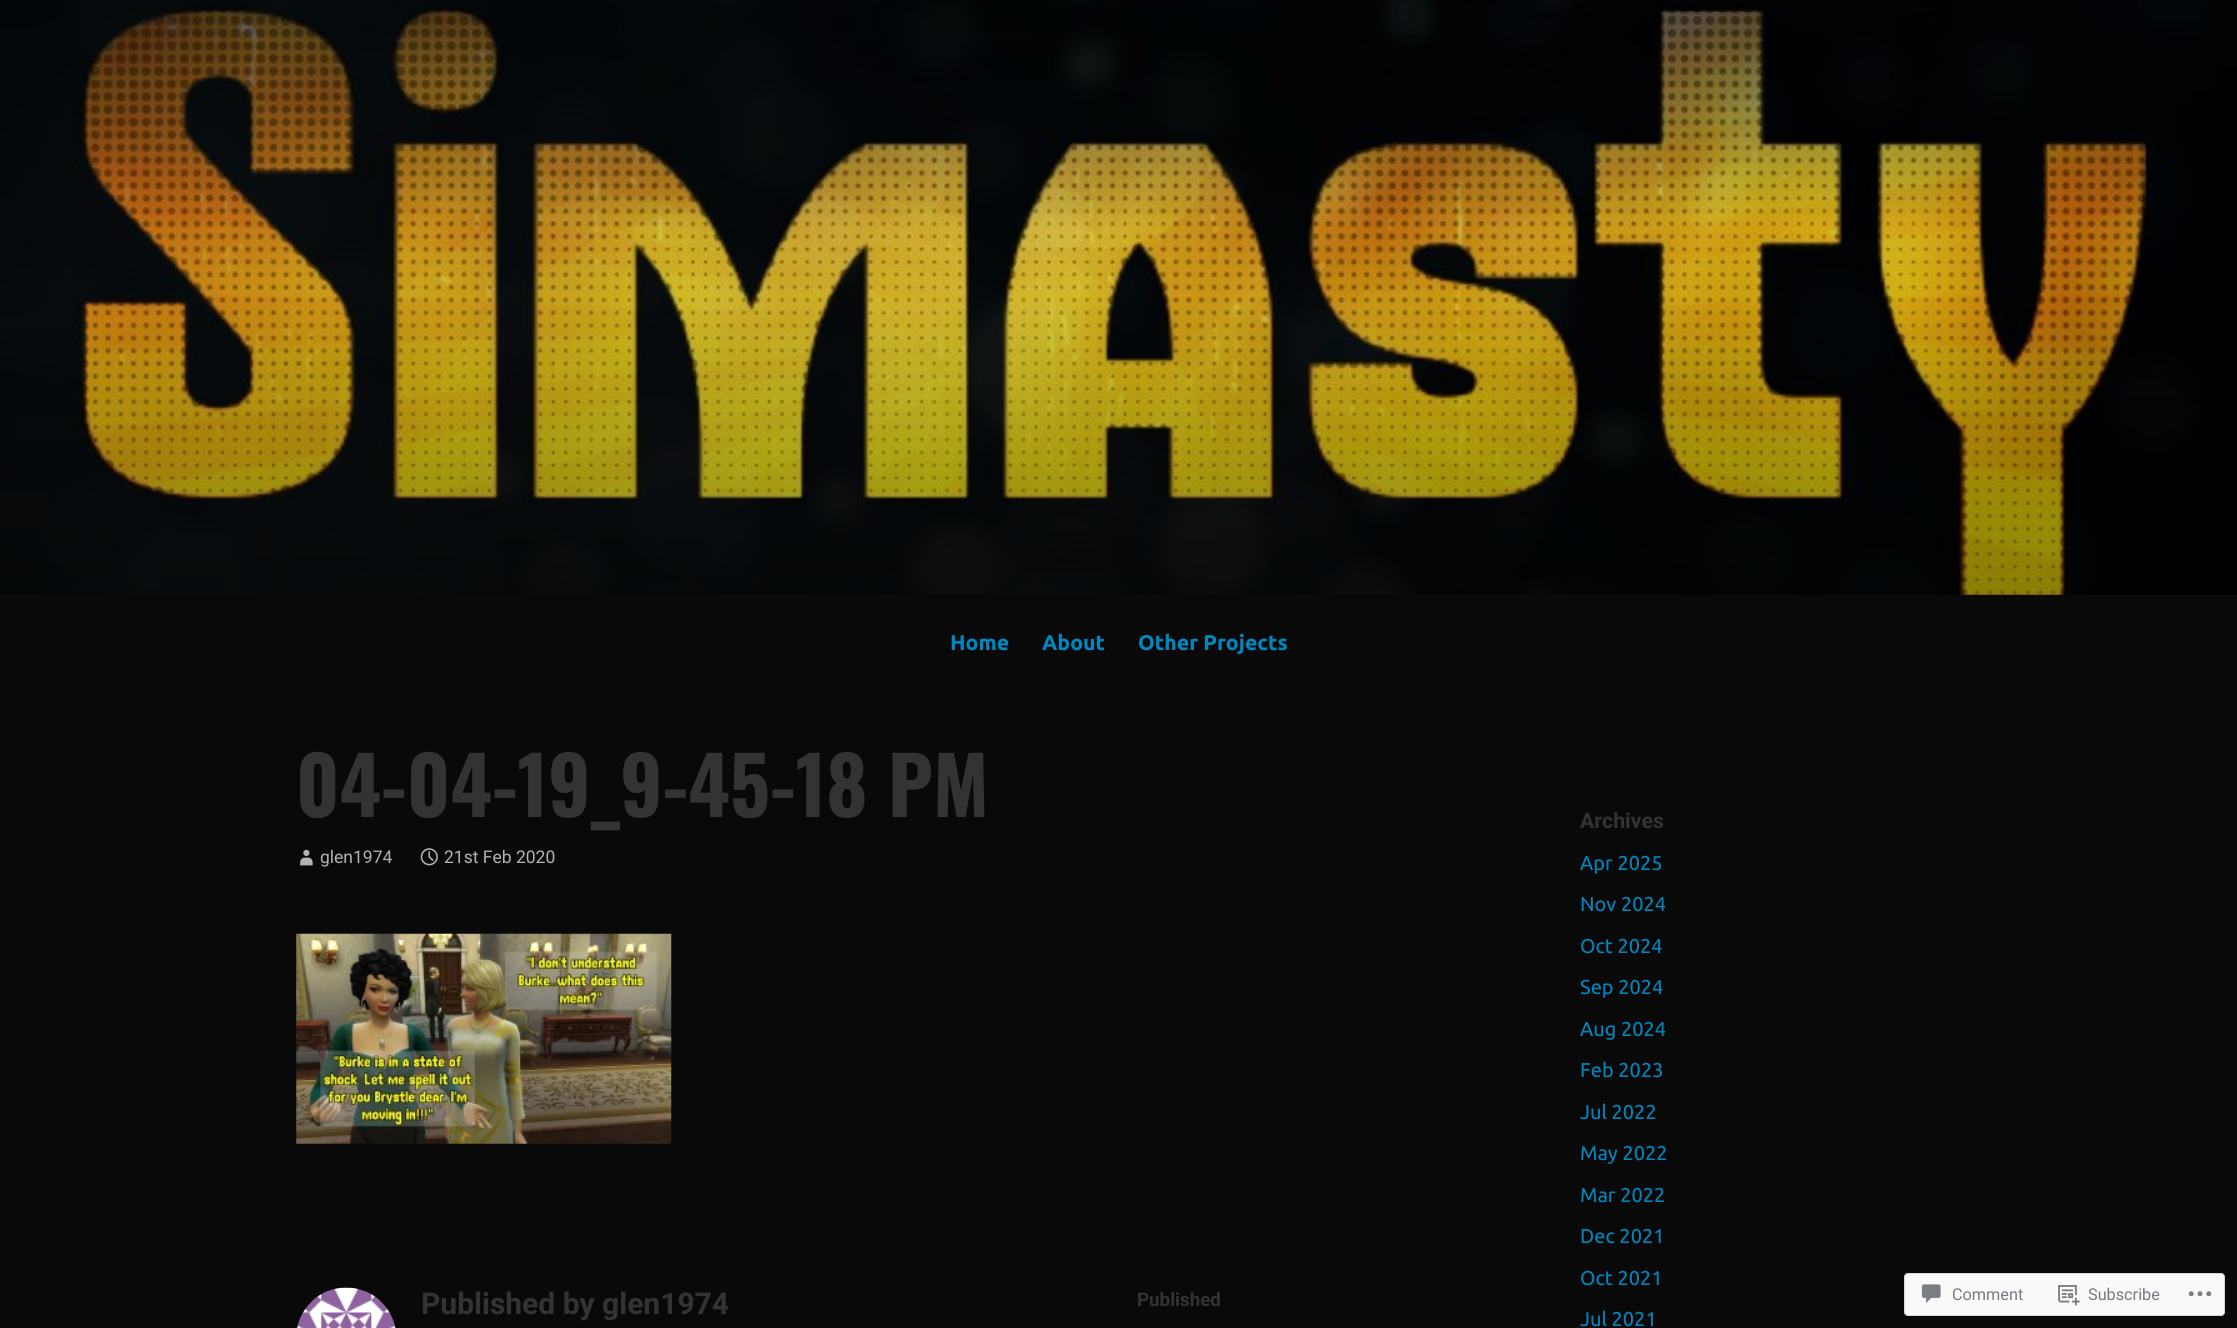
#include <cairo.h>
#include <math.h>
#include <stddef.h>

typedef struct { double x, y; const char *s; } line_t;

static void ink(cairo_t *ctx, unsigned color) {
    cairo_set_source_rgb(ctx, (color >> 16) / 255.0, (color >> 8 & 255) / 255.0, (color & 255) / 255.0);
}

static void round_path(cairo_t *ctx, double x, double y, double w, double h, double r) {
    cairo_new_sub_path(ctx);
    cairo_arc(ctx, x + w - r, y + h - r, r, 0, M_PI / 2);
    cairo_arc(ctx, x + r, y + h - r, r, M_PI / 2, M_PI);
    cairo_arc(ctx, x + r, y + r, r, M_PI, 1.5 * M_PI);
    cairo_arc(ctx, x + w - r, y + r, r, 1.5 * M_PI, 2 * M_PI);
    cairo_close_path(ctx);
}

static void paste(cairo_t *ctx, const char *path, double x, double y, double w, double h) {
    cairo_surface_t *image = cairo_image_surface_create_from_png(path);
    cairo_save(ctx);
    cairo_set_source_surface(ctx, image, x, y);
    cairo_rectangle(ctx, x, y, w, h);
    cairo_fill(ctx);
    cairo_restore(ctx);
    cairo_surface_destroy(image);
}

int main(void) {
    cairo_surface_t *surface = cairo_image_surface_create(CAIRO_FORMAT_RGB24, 2237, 1328);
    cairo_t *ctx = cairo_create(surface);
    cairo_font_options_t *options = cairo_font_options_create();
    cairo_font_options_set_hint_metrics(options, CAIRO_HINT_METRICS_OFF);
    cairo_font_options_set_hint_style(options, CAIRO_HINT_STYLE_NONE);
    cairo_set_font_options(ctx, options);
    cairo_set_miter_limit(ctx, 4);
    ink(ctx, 0x0A090A);
    cairo_paint(ctx);
    paste(ctx, "media/1.png", 0, 0, 2237, 595);
    cairo_select_font_face(ctx, "Ubuntu", CAIRO_FONT_SLANT_NORMAL, CAIRO_FONT_WEIGHT_BOLD);
    cairo_set_font_size(ctx, 21.25);
    ink(ctx, 0x0087BE);
    {
        static const line_t items[] = {
            {950, 650, "Home"},
            {1042, 650, "About"},
            {1138, 650, "Other Projects"},
        };
        for (size_t i = 0; i < sizeof items / sizeof *items; i++) {
            cairo_move_to(ctx, items[i].x, items[i].y);
            cairo_show_text(ctx, items[i].s);
        }
    }
    cairo_select_font_face(ctx, "Oswald", CAIRO_FONT_SLANT_NORMAL, CAIRO_FONT_WEIGHT_BOLD);
    cairo_set_font_size(ctx, 79.25);
    ink(ctx, 0x333332);
    cairo_move_to(ctx, 296, 817);
    cairo_show_text(ctx, "04-04-19_9-45-18 PM");
    paste(ctx, "media/2.png", 300, 849, 13, 17);
    cairo_select_font_face(ctx, "Roboto", CAIRO_FONT_SLANT_NORMAL, CAIRO_FONT_WEIGHT_NORMAL);
    cairo_set_font_size(ctx, 17.5);
    ink(ctx, 0xB3B3B1);
    cairo_move_to(ctx, 320, 863);
    cairo_show_text(ctx, "glen1974");
    paste(ctx, "media/3.png", 420, 848, 18, 18);
    cairo_move_to(ctx, 444, 863);
    cairo_show_text(ctx, "21st Feb 2020");
    paste(ctx, "media/4.png", 296, 933, 376, 211);
    paste(ctx, "media/5.png", 297, 1287, 99, 41);
    cairo_select_font_face(ctx, "Roboto", CAIRO_FONT_SLANT_NORMAL, CAIRO_FONT_WEIGHT_BOLD);
    cairo_set_font_size(ctx, 30);
    ink(ctx, 0x333332);
    cairo_move_to(ctx, 421, 1314);
    cairo_show_text(ctx, "Published by glen1974");
    cairo_set_font_size(ctx, 18.75);
    cairo_move_to(ctx, 1137, 1306);
    cairo_show_text(ctx, "Published");
    cairo_set_font_size(ctx, 21.25);
    cairo_move_to(ctx, 1580, 828);
    cairo_show_text(ctx, "Archives");
    cairo_select_font_face(ctx, "Ubuntu", CAIRO_FONT_SLANT_NORMAL, CAIRO_FONT_WEIGHT_NORMAL);
    cairo_set_font_size(ctx, 20);
    ink(ctx, 0x0087BE);
    {
        static const line_t items[] = {
            {1580, 870, "Apr 2025"},
            {1580, 911, "Nov 2024"},
            {1580, 953, "Oct 2024"},
            {1580, 994, "Sep 2024"},
            {1580, 1036, "Aug 2024"},
            {1580, 1077, "Feb 2023"},
            {1580, 1119, "Jul 2022"},
            {1580, 1160, "May 2022"},
            {1580, 1202, "Mar 2022"},
            {1580, 1243, "Dec 2021"},
            {1580, 1285, "Oct 2021"},
            {1580, 1326, "Jul 2021"},
        };
        for (size_t i = 0; i < sizeof items / sizeof *items; i++) {
            cairo_move_to(ctx, items[i].x, items[i].y);
            cairo_show_text(ctx, items[i].s);
        }
    }
    ink(ctx, 0xFAFAFA);
    round_path(ctx, 1904.5, 1273.5, 320, 42, 3.5);
    cairo_fill_preserve(ctx);
    ink(ctx, 0xD8D8DA);
    cairo_set_line_width(ctx, 1);
    cairo_stroke(ctx);
    paste(ctx, "media/6.png", 1921, 1284, 20, 19);
    cairo_select_font_face(ctx, "Roboto", CAIRO_FONT_SLANT_NORMAL, CAIRO_FONT_WEIGHT_NORMAL);
    cairo_set_font_size(ctx, 16.25);
    ink(ctx, 0x767A80);
    cairo_move_to(ctx, 1952, 1300);
    cairo_show_text(ctx, "Comment");
    paste(ctx, "media/7.png", 2058, 1285, 22, 21);
    cairo_move_to(ctx, 2088, 1300);
    cairo_show_text(ctx, "Subscribe");
    paste(ctx, "media/8.png", 2188, 1291, 24, 6);
    cairo_surface_write_to_png(surface, "image.png");
    cairo_font_options_destroy(options);
    cairo_destroy(ctx);
    cairo_surface_destroy(surface);
    return 0;
}
